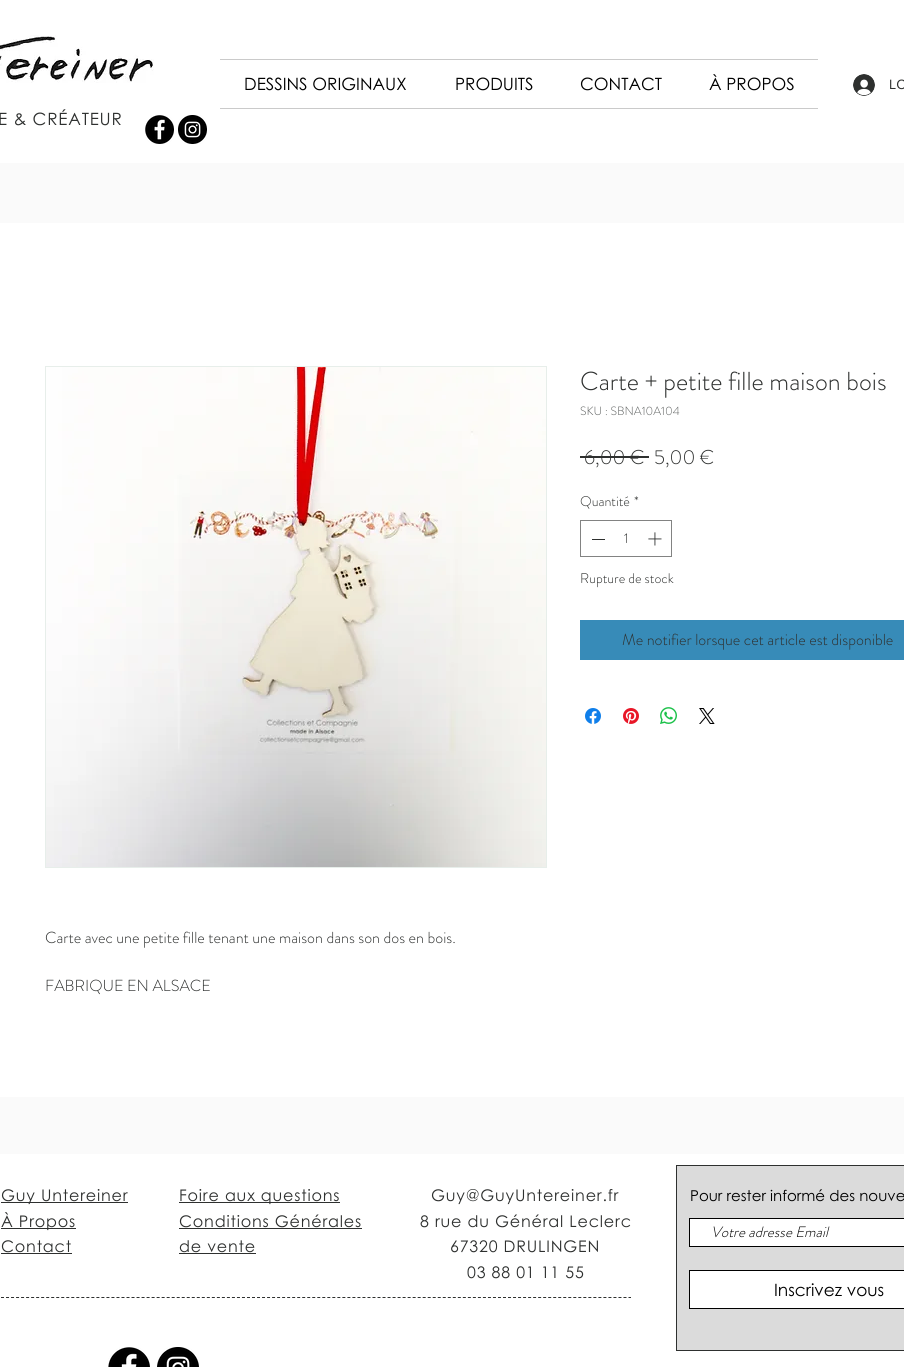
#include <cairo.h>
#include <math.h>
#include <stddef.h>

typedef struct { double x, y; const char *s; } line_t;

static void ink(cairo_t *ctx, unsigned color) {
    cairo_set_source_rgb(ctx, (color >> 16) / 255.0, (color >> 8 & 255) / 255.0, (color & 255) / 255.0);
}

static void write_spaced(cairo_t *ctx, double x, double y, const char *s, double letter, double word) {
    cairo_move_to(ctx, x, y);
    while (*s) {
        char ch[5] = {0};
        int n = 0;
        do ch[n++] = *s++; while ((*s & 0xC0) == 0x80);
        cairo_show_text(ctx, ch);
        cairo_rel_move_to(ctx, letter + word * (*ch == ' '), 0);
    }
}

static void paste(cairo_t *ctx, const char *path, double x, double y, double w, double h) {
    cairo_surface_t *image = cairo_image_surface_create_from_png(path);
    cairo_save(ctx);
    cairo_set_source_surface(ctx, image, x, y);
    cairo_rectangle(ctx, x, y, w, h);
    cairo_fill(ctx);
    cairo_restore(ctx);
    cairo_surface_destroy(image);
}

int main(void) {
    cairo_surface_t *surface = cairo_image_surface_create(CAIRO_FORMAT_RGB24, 904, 1367);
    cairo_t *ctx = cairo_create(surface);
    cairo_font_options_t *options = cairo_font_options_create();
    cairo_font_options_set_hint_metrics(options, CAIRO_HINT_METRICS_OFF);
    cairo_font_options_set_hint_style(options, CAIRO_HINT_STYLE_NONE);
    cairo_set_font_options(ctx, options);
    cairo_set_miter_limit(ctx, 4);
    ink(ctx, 0xFFFFFF);
    cairo_paint(ctx);
    paste(ctx, "media/1.png", 0, 35, 154, 48);
    ink(ctx, 0xCACACA);
    cairo_rectangle(ctx, 220, 59, 598, 1);
    cairo_fill(ctx);
    cairo_rectangle(ctx, 220, 108, 598, 1);
    cairo_fill(ctx);
    cairo_select_font_face(ctx, "Century Gothic", CAIRO_FONT_SLANT_NORMAL, CAIRO_FONT_WEIGHT_NORMAL);
    cairo_set_font_size(ctx, 17);
    ink(ctx, 0x000000);
    {
        static const line_t items[] = {
            {244, 90, "DESSINS ORIGINAUX"},
            {455, 90, "PRODUITS"},
            {580, 90, "CONTACT"},
            {709, 90, "À PROPOS"},
        };
        for (size_t i = 0; i < sizeof items / sizeof *items; i++) {
            cairo_move_to(ctx, items[i].x, items[i].y);
            cairo_show_text(ctx, items[i].s);
        }
    }
    paste(ctx, "media/2.png", 853, 74, 22, 22);
    cairo_select_font_face(ctx, "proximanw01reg", CAIRO_FONT_SLANT_NORMAL, CAIRO_FONT_WEIGHT_NORMAL);
    cairo_set_font_size(ctx, 14);
    ink(ctx, 0x2E302F);
    cairo_move_to(ctx, 889, 89);
    cairo_show_text(ctx, "LO");
    cairo_select_font_face(ctx, "Century Gothic", CAIRO_FONT_SLANT_NORMAL, CAIRO_FONT_WEIGHT_NORMAL);
    cairo_set_font_size(ctx, 17);
    write_spaced(ctx, -2, 125, "E & CRÉATEUR", 0.8, 0);
    paste(ctx, "media/3.png", 145, 115, 29, 29);
    paste(ctx, "media/4.png", 178, 115, 29, 29);
    ink(ctx, 0xFAFAFA);
    cairo_rectangle(ctx, 0, 163, 904, 60);
    cairo_fill(ctx);
    cairo_select_font_face(ctx, "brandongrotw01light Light", CAIRO_FONT_SLANT_NORMAL, CAIRO_FONT_WEIGHT_NORMAL);
    cairo_set_font_size(ctx, 26);
    ink(ctx, 0x2E302F);
    cairo_move_to(ctx, 580, 390);
    cairo_show_text(ctx, "Carte + petite fille maison bois");
    cairo_set_font_size(ctx, 12);
    ink(ctx, 0x5C5F5E);
    cairo_move_to(ctx, 580, 415);
    cairo_show_text(ctx, "SKU : SBNA10A104");
    cairo_set_font_size(ctx, 20);
    ink(ctx, 0x2E302F);
    cairo_move_to(ctx, 584, 464);
    cairo_show_text(ctx, "6,00 €");
    cairo_rectangle(ctx, 580, 456, 69, 2);
    cairo_fill(ctx);
    cairo_move_to(ctx, 654, 464);
    cairo_show_text(ctx, "5,00 €");
    cairo_set_font_size(ctx, 14);
    cairo_move_to(ctx, 580, 506);
    cairo_show_text(ctx, "Quantité");
    cairo_move_to(ctx, 634, 506);
    cairo_show_text(ctx, "*");
    cairo_rectangle(ctx, 580.5, 520.5, 91, 36);
    ink(ctx, 0x828382);
    cairo_set_line_width(ctx, 1);
    cairo_stroke(ctx);
    ink(ctx, 0x2E302F);
    cairo_rectangle(ctx, 592, 539, 13, 1);
    cairo_fill(ctx);
    cairo_move_to(ctx, 624, 543);
    cairo_show_text(ctx, "1");
    paste(ctx, "media/5.png", 648, 532, 14, 14);
    cairo_move_to(ctx, 580, 583);
    cairo_show_text(ctx, "Rupture de stock");
    ink(ctx, 0x378BB8);
    cairo_rectangle(ctx, 580, 620, 324, 40);
    cairo_fill(ctx);
    cairo_set_font_size(ctx, 16);
    ink(ctx, 0x2E302F);
    cairo_move_to(ctx, 622, 645);
    cairo_show_text(ctx, "Me notifier lorsque cet article est disponible");
    paste(ctx, "media/6.png", 585, 708, 16, 16);
    paste(ctx, "media/7.png", 623, 708, 16, 16);
    paste(ctx, "media/8.png", 660, 707, 17, 17);
    paste(ctx, "media/9.png", 699, 708, 16, 16);
    cairo_rectangle(ctx, 45.5, 366.5, 501, 501);
    ink(ctx, 0xE7EEEA);
    cairo_stroke(ctx);
    paste(ctx, "media/10.png", 46, 367, 500, 500);
    ink(ctx, 0x2E302F);
    cairo_move_to(ctx, 45, 943);
    cairo_show_text(ctx, "Carte avec une petite fille tenant une maison dans son dos en bois.");
    cairo_move_to(ctx, 45, 991);
    cairo_show_text(ctx, "FABRIQUE EN ALSACE");
    ink(ctx, 0xFAFAFA);
    cairo_rectangle(ctx, 0, 1097, 904, 57);
    cairo_fill(ctx);
    ink(ctx, 0x2E302F);
    cairo_rectangle(ctx, 1, 1202, 127, 1);
    cairo_fill(ctx);
    cairo_select_font_face(ctx, "Century Gothic", CAIRO_FONT_SLANT_NORMAL, CAIRO_FONT_WEIGHT_NORMAL);
    write_spaced(ctx, 1, 1201, "Guy Untereiner", 0.8, 0);
    cairo_rectangle(ctx, 1, 1228, 75, 1);
    cairo_fill(ctx);
    write_spaced(ctx, 1, 1227, "À Propos", 0.8, 0);
    write_spaced(ctx, 1, 1252, "Contact", 0.8, 0);
    cairo_rectangle(ctx, 1, 1253, 71, 1);
    cairo_fill(ctx);
    cairo_rectangle(ctx, 179, 1202, 161, 1);
    cairo_fill(ctx);
    write_spaced(ctx, 179, 1201, "Foire aux questions", 0.8, 0);
    write_spaced(ctx, 179, 1227, "Conditions Générales", 0.8, 0);
    cairo_rectangle(ctx, 179, 1228, 183, 1);
    cairo_fill(ctx);
    write_spaced(ctx, 179, 1252, "de vente", 0.8, 0);
    cairo_rectangle(ctx, 179, 1253, 77, 1);
    cairo_fill(ctx);
    {
        static const line_t items[] = {
            {431, 1201, "Guy@GuyUntereiner.fr"},
            {420, 1227, "8 rue du Général Leclerc"},
            {450, 1252, "67320 DRULINGEN"},
            {467, 1278, "03 88 01 11 55"},
        };
        for (size_t i = 0; i < sizeof items / sizeof *items; i++) {
            write_spaced(ctx, items[i].x, items[i].y, items[i].s, 0.8, 0);
        }
    }
    ink(ctx, 0xDBDBDB);
    cairo_rectangle(ctx, 676.5, 1165.5, 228, 185);
    cairo_fill_preserve(ctx);
    ink(ctx, 0x2E302F);
    cairo_stroke(ctx);
    cairo_set_font_size(ctx, 15);
    ink(ctx, 0x000000);
    cairo_move_to(ctx, 690, 1201);
    cairo_show_text(ctx, "Pour rester informé des nouve");
    ink(ctx, 0xFFFFFF);
    cairo_rectangle(ctx, 689.5, 1218.5, 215, 28);
    cairo_fill_preserve(ctx);
    ink(ctx, 0x000000);
    cairo_stroke(ctx);
    cairo_select_font_face(ctx, "brandongrotw01light Light", CAIRO_FONT_SLANT_ITALIC, CAIRO_FONT_WEIGHT_NORMAL);
    cairo_move_to(ctx, 711, 1237);
    cairo_show_text(ctx, "Votre adresse Email");
    ink(ctx, 0xFFFFFF);
    cairo_rectangle(ctx, 689.5, 1270.5, 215, 38);
    cairo_fill_preserve(ctx);
    ink(ctx, 0x000000);
    cairo_stroke(ctx);
    cairo_select_font_face(ctx, "Century Gothic", CAIRO_FONT_SLANT_NORMAL, CAIRO_FONT_WEIGHT_NORMAL);
    cairo_set_font_size(ctx, 17);
    cairo_move_to(ctx, 774, 1296);
    cairo_show_text(ctx, "Inscrivez vous");
    cairo_new_path(ctx);
    cairo_move_to(ctx, 1, 1297.5);
    cairo_line_to(ctx, 631, 1297.5);
    ink(ctx, 0x2E302F);
    cairo_set_dash(ctx, (double[]){3, 2.02}, 2, 0);
    cairo_stroke(ctx);
    paste(ctx, "media/11.png", 108, 1347, 42, 20);
    paste(ctx, "media/12.png", 157, 1347, 42, 20);
    cairo_surface_write_to_png(surface, "image.png");
    cairo_font_options_destroy(options);
    cairo_destroy(ctx);
    cairo_surface_destroy(surface);
    return 0;
}
